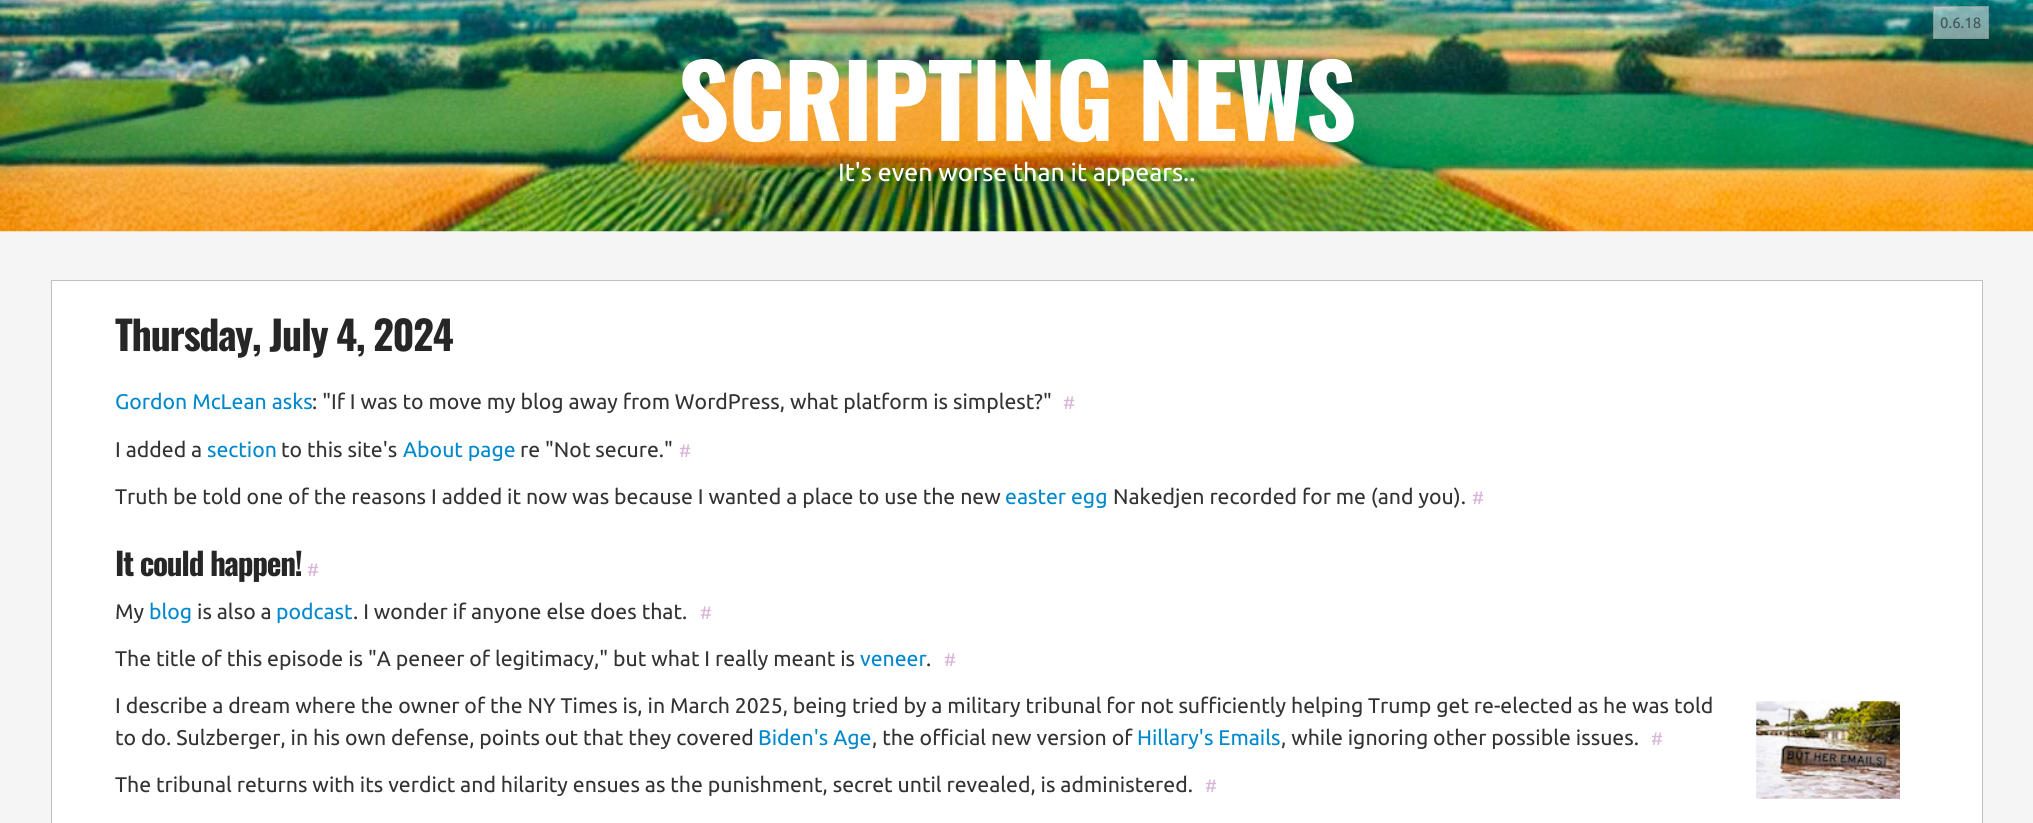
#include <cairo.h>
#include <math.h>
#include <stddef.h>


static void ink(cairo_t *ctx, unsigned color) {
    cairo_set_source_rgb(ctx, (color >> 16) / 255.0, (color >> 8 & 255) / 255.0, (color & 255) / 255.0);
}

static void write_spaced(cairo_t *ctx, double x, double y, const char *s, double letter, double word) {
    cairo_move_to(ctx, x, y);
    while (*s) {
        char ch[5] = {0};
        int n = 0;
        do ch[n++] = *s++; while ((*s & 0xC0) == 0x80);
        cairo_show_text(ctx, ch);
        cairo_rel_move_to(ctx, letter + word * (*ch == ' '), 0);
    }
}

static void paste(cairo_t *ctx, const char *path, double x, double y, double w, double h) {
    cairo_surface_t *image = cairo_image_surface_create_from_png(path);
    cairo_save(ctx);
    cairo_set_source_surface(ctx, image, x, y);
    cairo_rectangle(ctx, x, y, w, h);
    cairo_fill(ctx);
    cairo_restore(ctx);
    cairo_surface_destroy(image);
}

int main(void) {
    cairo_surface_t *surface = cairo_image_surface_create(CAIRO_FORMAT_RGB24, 2033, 823);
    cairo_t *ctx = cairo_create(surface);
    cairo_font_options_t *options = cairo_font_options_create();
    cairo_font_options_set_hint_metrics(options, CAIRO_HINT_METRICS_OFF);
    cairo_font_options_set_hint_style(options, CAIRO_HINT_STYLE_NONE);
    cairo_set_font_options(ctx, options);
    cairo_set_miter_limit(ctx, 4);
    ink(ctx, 0xF5F5F5);
    cairo_paint(ctx);
    paste(ctx, "media/1.png", 0, 0, 2033, 232);
    cairo_set_source_rgba(ctx, 1, 1, 1, 0.5);
    cairo_rectangle(ctx, 1933, 6, 56, 33);
    cairo_fill(ctx);
    cairo_rectangle(ctx, 1933.5, 6.5, 55, 32);
    cairo_set_source_rgba(ctx, 0.502, 0.502, 0.502, 0.5);
    cairo_set_line_width(ctx, 1);
    cairo_stroke(ctx);
    cairo_select_font_face(ctx, "Ubuntu", CAIRO_FONT_SLANT_NORMAL, CAIRO_FONT_WEIGHT_NORMAL);
    cairo_set_font_size(ctx, 15);
    ink(ctx, 0x405454);
    cairo_move_to(ctx, 1940, 28);
    cairo_show_text(ctx, "0.6.18");
    cairo_select_font_face(ctx, "Oswald", CAIRO_FONT_SLANT_NORMAL, CAIRO_FONT_WEIGHT_BOLD);
    cairo_set_font_size(ctx, 100);
    ink(ctx, 0xFFFFFF);
    write_spaced(ctx, 678, 141, "SCRIPTING NEWS", -1, 0);
    cairo_select_font_face(ctx, "Ubuntu", CAIRO_FONT_SLANT_NORMAL, CAIRO_FONT_WEIGHT_NORMAL);
    cairo_set_font_size(ctx, 25);
    cairo_move_to(ctx, 838, 181);
    cairo_show_text(ctx, "It's even worse than it appears..");
    cairo_rectangle(ctx, 51.5, 280.5, 1931, 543);
    cairo_fill_preserve(ctx);
    ink(ctx, 0xC0C0C0);
    cairo_stroke(ctx);
    cairo_select_font_face(ctx, "Oswald", CAIRO_FONT_SLANT_NORMAL, CAIRO_FONT_WEIGHT_BOLD);
    cairo_set_font_size(ctx, 40);
    ink(ctx, 0x262626);
    write_spaced(ctx, 115, 351, "Thursday, July 4, 2024", -1.25, 0);
    cairo_select_font_face(ctx, "Ubuntu", CAIRO_FONT_SLANT_NORMAL, CAIRO_FONT_WEIGHT_NORMAL);
    cairo_set_font_size(ctx, 21.25);
    ink(ctx, 0x0088CC);
    cairo_move_to(ctx, 115, 409);
    cairo_show_text(ctx, "Gordon McLean asks");
    ink(ctx, 0x333333);
    cairo_move_to(ctx, 312, 409);
    cairo_show_text(ctx, ": \"If I was to move my blog away from WordPress, what platform is simplest?\"");
    cairo_set_font_size(ctx, 18);
    ink(ctx, 0xD9B3D9);
    cairo_move_to(ctx, 1063, 409);
    cairo_show_text(ctx, "#");
    cairo_set_font_size(ctx, 21.25);
    ink(ctx, 0x333333);
    cairo_move_to(ctx, 115, 457);
    cairo_show_text(ctx, "I added a");
    ink(ctx, 0x0088CC);
    cairo_move_to(ctx, 207, 457);
    cairo_show_text(ctx, "section");
    ink(ctx, 0x333333);
    cairo_move_to(ctx, 281, 457);
    cairo_show_text(ctx, "to this site's");
    ink(ctx, 0x0088CC);
    cairo_move_to(ctx, 403, 457);
    cairo_show_text(ctx, "About page");
    ink(ctx, 0x333333);
    cairo_move_to(ctx, 520, 457);
    cairo_show_text(ctx, "re \"Not secure.\"");
    cairo_set_font_size(ctx, 18);
    ink(ctx, 0xD9B3D9);
    cairo_move_to(ctx, 679, 457);
    cairo_show_text(ctx, "#");
    cairo_set_font_size(ctx, 21.25);
    ink(ctx, 0x333333);
    cairo_move_to(ctx, 115, 504);
    cairo_show_text(ctx, "Truth be told one of the reasons I added it now was because I wanted a place to use the new");
    ink(ctx, 0x0088CC);
    cairo_move_to(ctx, 1005, 504);
    cairo_show_text(ctx, "easter egg");
    ink(ctx, 0x333333);
    cairo_move_to(ctx, 1113, 504);
    cairo_show_text(ctx, "Nakedjen recorded for me (and you).");
    cairo_set_font_size(ctx, 18);
    ink(ctx, 0xD9B3D9);
    cairo_move_to(ctx, 1472, 504);
    cairo_show_text(ctx, "#");
    cairo_select_font_face(ctx, "Oswald", CAIRO_FONT_SLANT_NORMAL, CAIRO_FONT_WEIGHT_BOLD);
    cairo_set_font_size(ctx, 31.25);
    ink(ctx, 0x262626);
    write_spaced(ctx, 115, 576, "It could happen!", -1.25, 0);
    cairo_select_font_face(ctx, "Ubuntu", CAIRO_FONT_SLANT_NORMAL, CAIRO_FONT_WEIGHT_NORMAL);
    cairo_set_font_size(ctx, 18);
    ink(ctx, 0xD9B3D9);
    write_spaced(ctx, 307, 576, "#", -1.25, 0);
    cairo_set_font_size(ctx, 21.25);
    ink(ctx, 0x333333);
    cairo_move_to(ctx, 115, 619);
    cairo_show_text(ctx, "My");
    ink(ctx, 0x0088CC);
    cairo_move_to(ctx, 149, 619);
    cairo_show_text(ctx, "blog");
    ink(ctx, 0x333333);
    cairo_move_to(ctx, 197, 619);
    cairo_show_text(ctx, "is also a");
    ink(ctx, 0x0088CC);
    cairo_move_to(ctx, 276, 619);
    cairo_show_text(ctx, "podcast");
    ink(ctx, 0x333333);
    cairo_move_to(ctx, 353, 619);
    cairo_show_text(ctx, ". I wonder if anyone else does that.");
    cairo_set_font_size(ctx, 18);
    ink(ctx, 0xD9B3D9);
    cairo_move_to(ctx, 700, 619);
    cairo_show_text(ctx, "#");
    cairo_set_font_size(ctx, 21.25);
    ink(ctx, 0x333333);
    cairo_move_to(ctx, 115, 666);
    cairo_show_text(ctx, "The title of this episode is \"A peneer of legitimacy,\" but what I really meant is");
    ink(ctx, 0x0088CC);
    cairo_move_to(ctx, 860, 666);
    cairo_show_text(ctx, "veneer");
    ink(ctx, 0x333333);
    cairo_move_to(ctx, 926, 666);
    cairo_show_text(ctx, ".");
    cairo_set_font_size(ctx, 18);
    ink(ctx, 0xD9B3D9);
    cairo_move_to(ctx, 944, 666);
    cairo_show_text(ctx, "#");
    cairo_set_font_size(ctx, 21.25);
    ink(ctx, 0x333333);
    cairo_move_to(ctx, 115, 713);
    cairo_show_text(ctx, "I describe a dream where the owner of the NY Times is, in March 2025, being tried by a military tribunal for not sufficiently helping Trump get re-elected as he was told");
    paste(ctx, "media/2.png", 1756, 701, 144, 98);
    cairo_move_to(ctx, 115, 745);
    cairo_show_text(ctx, "to do. Sulzberger, in his own defense, points out that they covered");
    ink(ctx, 0x0088CC);
    cairo_move_to(ctx, 758, 745);
    cairo_show_text(ctx, "Biden's Age");
    ink(ctx, 0x333333);
    cairo_move_to(ctx, 872, 745);
    cairo_show_text(ctx, ", the official new version of");
    ink(ctx, 0x0088CC);
    cairo_move_to(ctx, 1137, 745);
    cairo_show_text(ctx, "Hillary's Emails");
    ink(ctx, 0x333333);
    cairo_move_to(ctx, 1281, 745);
    cairo_show_text(ctx, ", while ignoring other possible issues.");
    cairo_set_font_size(ctx, 18);
    ink(ctx, 0xD9B3D9);
    cairo_move_to(ctx, 1651, 745);
    cairo_show_text(ctx, "#");
    cairo_set_font_size(ctx, 21.25);
    ink(ctx, 0x333333);
    cairo_move_to(ctx, 115, 792);
    cairo_show_text(ctx, "The tribunal returns with its verdict and hilarity ensues as the punishment, secret until revealed, is administered.");
    cairo_set_font_size(ctx, 18);
    ink(ctx, 0xD9B3D9);
    cairo_move_to(ctx, 1205, 792);
    cairo_show_text(ctx, "#");
    cairo_surface_write_to_png(surface, "image.png");
    cairo_font_options_destroy(options);
    cairo_destroy(ctx);
    cairo_surface_destroy(surface);
    return 0;
}
